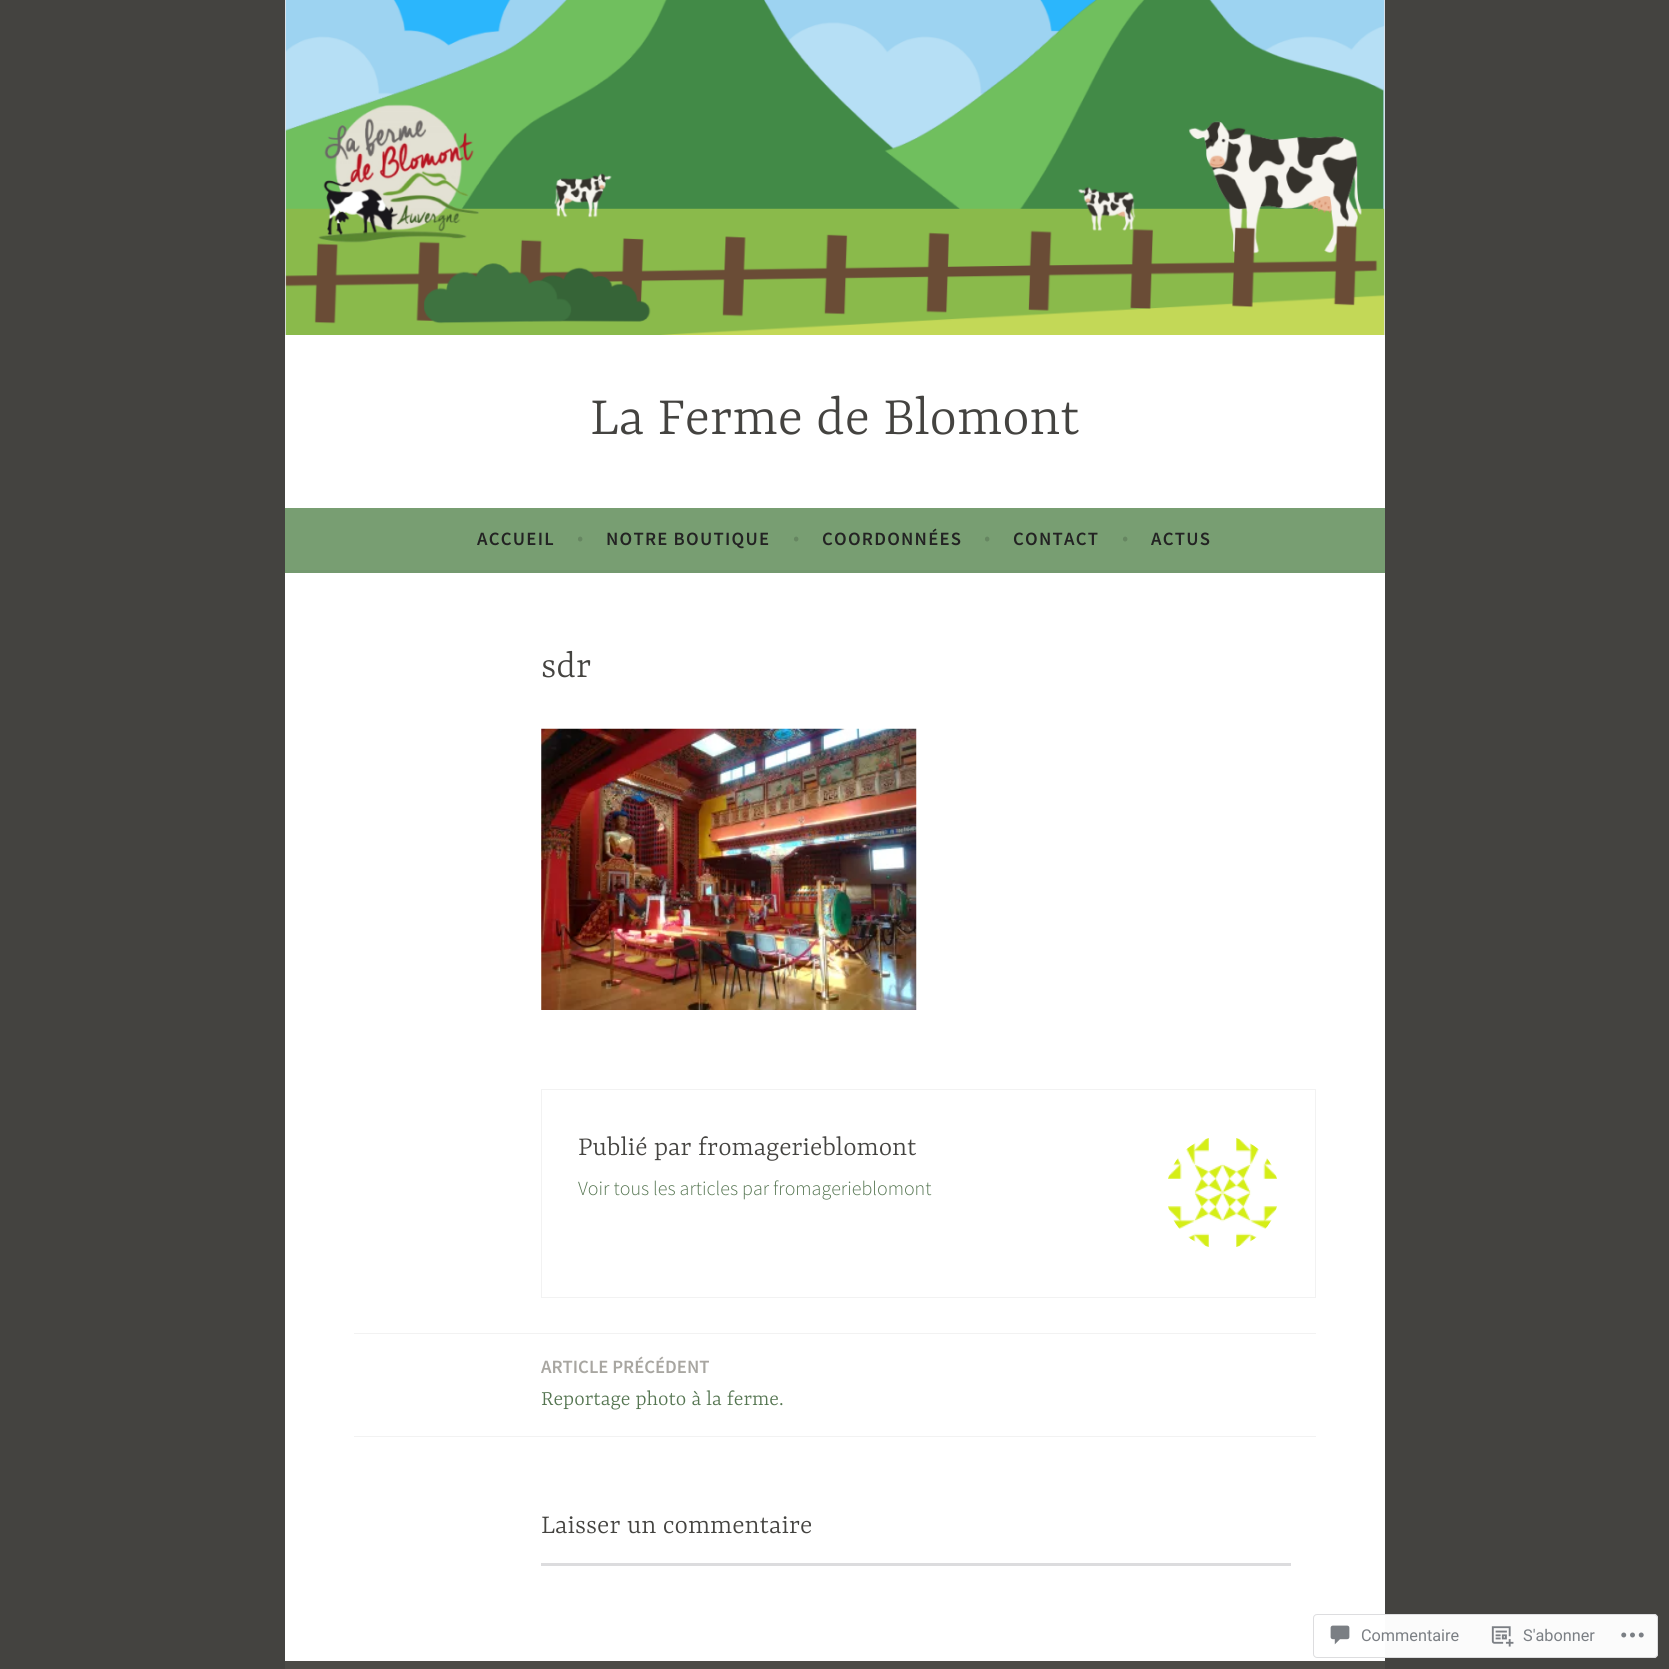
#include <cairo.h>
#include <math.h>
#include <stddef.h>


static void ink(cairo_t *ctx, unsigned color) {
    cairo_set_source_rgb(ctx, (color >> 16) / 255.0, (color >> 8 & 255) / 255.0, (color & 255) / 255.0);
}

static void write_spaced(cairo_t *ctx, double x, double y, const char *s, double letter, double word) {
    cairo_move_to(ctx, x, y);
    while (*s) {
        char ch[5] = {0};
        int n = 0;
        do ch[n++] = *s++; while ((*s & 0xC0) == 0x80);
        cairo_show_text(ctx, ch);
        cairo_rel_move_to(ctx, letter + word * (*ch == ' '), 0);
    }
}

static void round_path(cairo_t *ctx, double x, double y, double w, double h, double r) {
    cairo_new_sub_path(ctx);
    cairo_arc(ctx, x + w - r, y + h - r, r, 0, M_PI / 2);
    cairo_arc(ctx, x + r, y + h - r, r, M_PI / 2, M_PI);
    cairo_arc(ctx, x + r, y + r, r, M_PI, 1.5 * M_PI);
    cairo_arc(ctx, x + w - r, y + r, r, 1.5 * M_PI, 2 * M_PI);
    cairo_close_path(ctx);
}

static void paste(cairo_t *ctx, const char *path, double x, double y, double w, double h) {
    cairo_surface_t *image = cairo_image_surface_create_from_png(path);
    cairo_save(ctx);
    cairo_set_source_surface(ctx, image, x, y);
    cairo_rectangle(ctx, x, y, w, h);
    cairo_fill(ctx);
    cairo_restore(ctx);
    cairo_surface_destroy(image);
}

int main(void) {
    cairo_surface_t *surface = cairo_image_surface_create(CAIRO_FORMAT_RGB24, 1669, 1669);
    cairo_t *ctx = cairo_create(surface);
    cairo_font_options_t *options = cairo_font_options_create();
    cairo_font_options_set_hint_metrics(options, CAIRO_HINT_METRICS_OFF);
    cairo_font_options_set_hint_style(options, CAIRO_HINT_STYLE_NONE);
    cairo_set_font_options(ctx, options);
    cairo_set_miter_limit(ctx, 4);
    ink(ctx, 0x444340);
    cairo_paint(ctx);
    paste(ctx, "media/1.png", 285, 0, 1100, 335);
    ink(ctx, 0xFFFFFF);
    cairo_rectangle(ctx, 285, 335, 1100, 173);
    cairo_fill(ctx);
    cairo_select_font_face(ctx, "Yrsa Light", CAIRO_FONT_SLANT_NORMAL, CAIRO_FONT_WEIGHT_NORMAL);
    cairo_set_font_size(ctx, 58.75);
    ink(ctx, 0x444340);
    cairo_move_to(ctx, 590, 434);
    cairo_show_text(ctx, "La Ferme de Blomont");
    ink(ctx, 0x789E72);
    cairo_rectangle(ctx, 285, 508, 1100, 62);
    cairo_fill(ctx);
    ink(ctx, 0x74996F);
    cairo_rectangle(ctx, 285, 570, 1100, 3);
    cairo_fill(ctx);
    cairo_select_font_face(ctx, "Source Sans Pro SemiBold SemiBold", CAIRO_FONT_SLANT_NORMAL, CAIRO_FONT_WEIGHT_NORMAL);
    cairo_set_font_size(ctx, 18.75);
    ink(ctx, 0x232323);
    write_spaced(ctx, 477, 545, "ACCUEIL", 1.25, 0);
    cairo_select_font_face(ctx, "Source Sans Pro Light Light", CAIRO_FONT_SLANT_NORMAL, CAIRO_FONT_WEIGHT_NORMAL);
    cairo_set_font_size(ctx, 22.5);
    ink(ctx, 0x668661);
    cairo_move_to(ctx, 577, 545);
    cairo_show_text(ctx, "•");
    cairo_select_font_face(ctx, "Source Sans Pro SemiBold SemiBold", CAIRO_FONT_SLANT_NORMAL, CAIRO_FONT_WEIGHT_NORMAL);
    cairo_set_font_size(ctx, 18.75);
    ink(ctx, 0x232323);
    write_spaced(ctx, 606, 545, "NOTRE BOUTIQUE", 1.25, 0);
    cairo_select_font_face(ctx, "Source Sans Pro Light Light", CAIRO_FONT_SLANT_NORMAL, CAIRO_FONT_WEIGHT_NORMAL);
    cairo_set_font_size(ctx, 22.5);
    ink(ctx, 0x668661);
    cairo_move_to(ctx, 793, 545);
    cairo_show_text(ctx, "•");
    cairo_select_font_face(ctx, "Source Sans Pro SemiBold SemiBold", CAIRO_FONT_SLANT_NORMAL, CAIRO_FONT_WEIGHT_NORMAL);
    cairo_set_font_size(ctx, 18.75);
    ink(ctx, 0x232323);
    write_spaced(ctx, 822, 545, "COORDONNÉES", 1.25, 0);
    cairo_select_font_face(ctx, "Source Sans Pro Light Light", CAIRO_FONT_SLANT_NORMAL, CAIRO_FONT_WEIGHT_NORMAL);
    cairo_set_font_size(ctx, 22.5);
    ink(ctx, 0x668661);
    cairo_move_to(ctx, 984, 545);
    cairo_show_text(ctx, "•");
    cairo_select_font_face(ctx, "Source Sans Pro SemiBold SemiBold", CAIRO_FONT_SLANT_NORMAL, CAIRO_FONT_WEIGHT_NORMAL);
    cairo_set_font_size(ctx, 18.75);
    ink(ctx, 0x232323);
    write_spaced(ctx, 1013, 545, "CONTACT", 1.25, 0);
    cairo_select_font_face(ctx, "Source Sans Pro Light Light", CAIRO_FONT_SLANT_NORMAL, CAIRO_FONT_WEIGHT_NORMAL);
    cairo_set_font_size(ctx, 22.5);
    ink(ctx, 0x668661);
    cairo_move_to(ctx, 1122, 545);
    cairo_show_text(ctx, "•");
    cairo_select_font_face(ctx, "Source Sans Pro SemiBold SemiBold", CAIRO_FONT_SLANT_NORMAL, CAIRO_FONT_WEIGHT_NORMAL);
    cairo_set_font_size(ctx, 18.75);
    ink(ctx, 0x232323);
    write_spaced(ctx, 1151, 545, "ACTUS", 1.25, 0);
    ink(ctx, 0xFFFFFF);
    cairo_rectangle(ctx, 285, 573, 1100, 1088);
    cairo_fill(ctx);
    cairo_select_font_face(ctx, "Yrsa Light", CAIRO_FONT_SLANT_NORMAL, CAIRO_FONT_WEIGHT_NORMAL);
    cairo_set_font_size(ctx, 40);
    ink(ctx, 0x444340);
    cairo_move_to(ctx, 541, 677);
    cairo_show_text(ctx, "sdr");
    paste(ctx, "media/2.png", 541, 728, 376, 282);
    cairo_rectangle(ctx, 541.5, 1089.5, 774, 208);
    ink(ctx, 0xF2F2F2);
    cairo_set_line_width(ctx, 1);
    cairo_stroke(ctx);
    cairo_set_font_size(ctx, 28.75);
    ink(ctx, 0x444340);
    cairo_move_to(ctx, 578, 1155);
    cairo_show_text(ctx, "Publié par fromagerieblomont");
    paste(ctx, "media/3.png", 1168, 1138, 109, 109);
    cairo_select_font_face(ctx, "Source Sans Pro Light Light", CAIRO_FONT_SLANT_NORMAL, CAIRO_FONT_WEIGHT_NORMAL);
    cairo_set_font_size(ctx, 20);
    ink(ctx, 0x557551);
    cairo_move_to(ctx, 578, 1195);
    cairo_show_text(ctx, "Voir tous les articles par fromagerieblomont");
    ink(ctx, 0xF2F2F2);
    cairo_rectangle(ctx, 354, 1333, 962, 1);
    cairo_fill(ctx);
    cairo_select_font_face(ctx, "Source Sans Pro SemiBold SemiBold", CAIRO_FONT_SLANT_NORMAL, CAIRO_FONT_WEIGHT_NORMAL);
    cairo_set_font_size(ctx, 18.75);
    ink(ctx, 0xA8A6A1);
    cairo_move_to(ctx, 541, 1373);
    cairo_show_text(ctx, "ARTICLE PRÉCÉDENT");
    cairo_select_font_face(ctx, "Yrsa Light", CAIRO_FONT_SLANT_NORMAL, CAIRO_FONT_WEIGHT_NORMAL);
    cairo_set_font_size(ctx, 22.5);
    ink(ctx, 0x557551);
    cairo_move_to(ctx, 541, 1405);
    cairo_show_text(ctx, "Reportage photo à la ferme.");
    ink(ctx, 0xF2F2F2);
    cairo_rectangle(ctx, 354, 1436, 962, 1);
    cairo_fill(ctx);
    cairo_set_font_size(ctx, 28.75);
    ink(ctx, 0x444340);
    cairo_move_to(ctx, 541, 1533);
    cairo_show_text(ctx, "Laisser un commentaire");
    ink(ctx, 0xDCDCDE);
    cairo_rectangle(ctx, 541, 1563, 750, 3);
    cairo_fill(ctx);
    ink(ctx, 0x4C4B47);
    cairo_rectangle(ctx, 285, 1661, 1100, 8);
    cairo_fill(ctx);
    cairo_set_source_rgba(ctx, 1, 1, 1, 0.98);
    round_path(ctx, 1313, 1614, 345, 44, 4);
    cairo_fill(ctx);
    round_path(ctx, 1313.5, 1614.5, 344, 43, 3.5);
    cairo_set_source_rgba(ctx, 0.863, 0.863, 0.871, 0.98);
    cairo_stroke(ctx);
    paste(ctx, "media/4.png", 1330, 1625, 20, 20);
    cairo_select_font_face(ctx, "Roboto", CAIRO_FONT_SLANT_NORMAL, CAIRO_FONT_WEIGHT_NORMAL);
    cairo_set_font_size(ctx, 16.25);
    ink(ctx, 0x7B7F84);
    cairo_move_to(ctx, 1361, 1641);
    cairo_show_text(ctx, "Commentaire");
    paste(ctx, "media/5.png", 1491, 1626, 23, 21);
    cairo_move_to(ctx, 1523, 1641);
    cairo_show_text(ctx, "S'abonner");
    paste(ctx, "media/6.png", 1621, 1632, 23, 6);
    cairo_surface_write_to_png(surface, "image.png");
    cairo_font_options_destroy(options);
    cairo_destroy(ctx);
    cairo_surface_destroy(surface);
    return 0;
}
